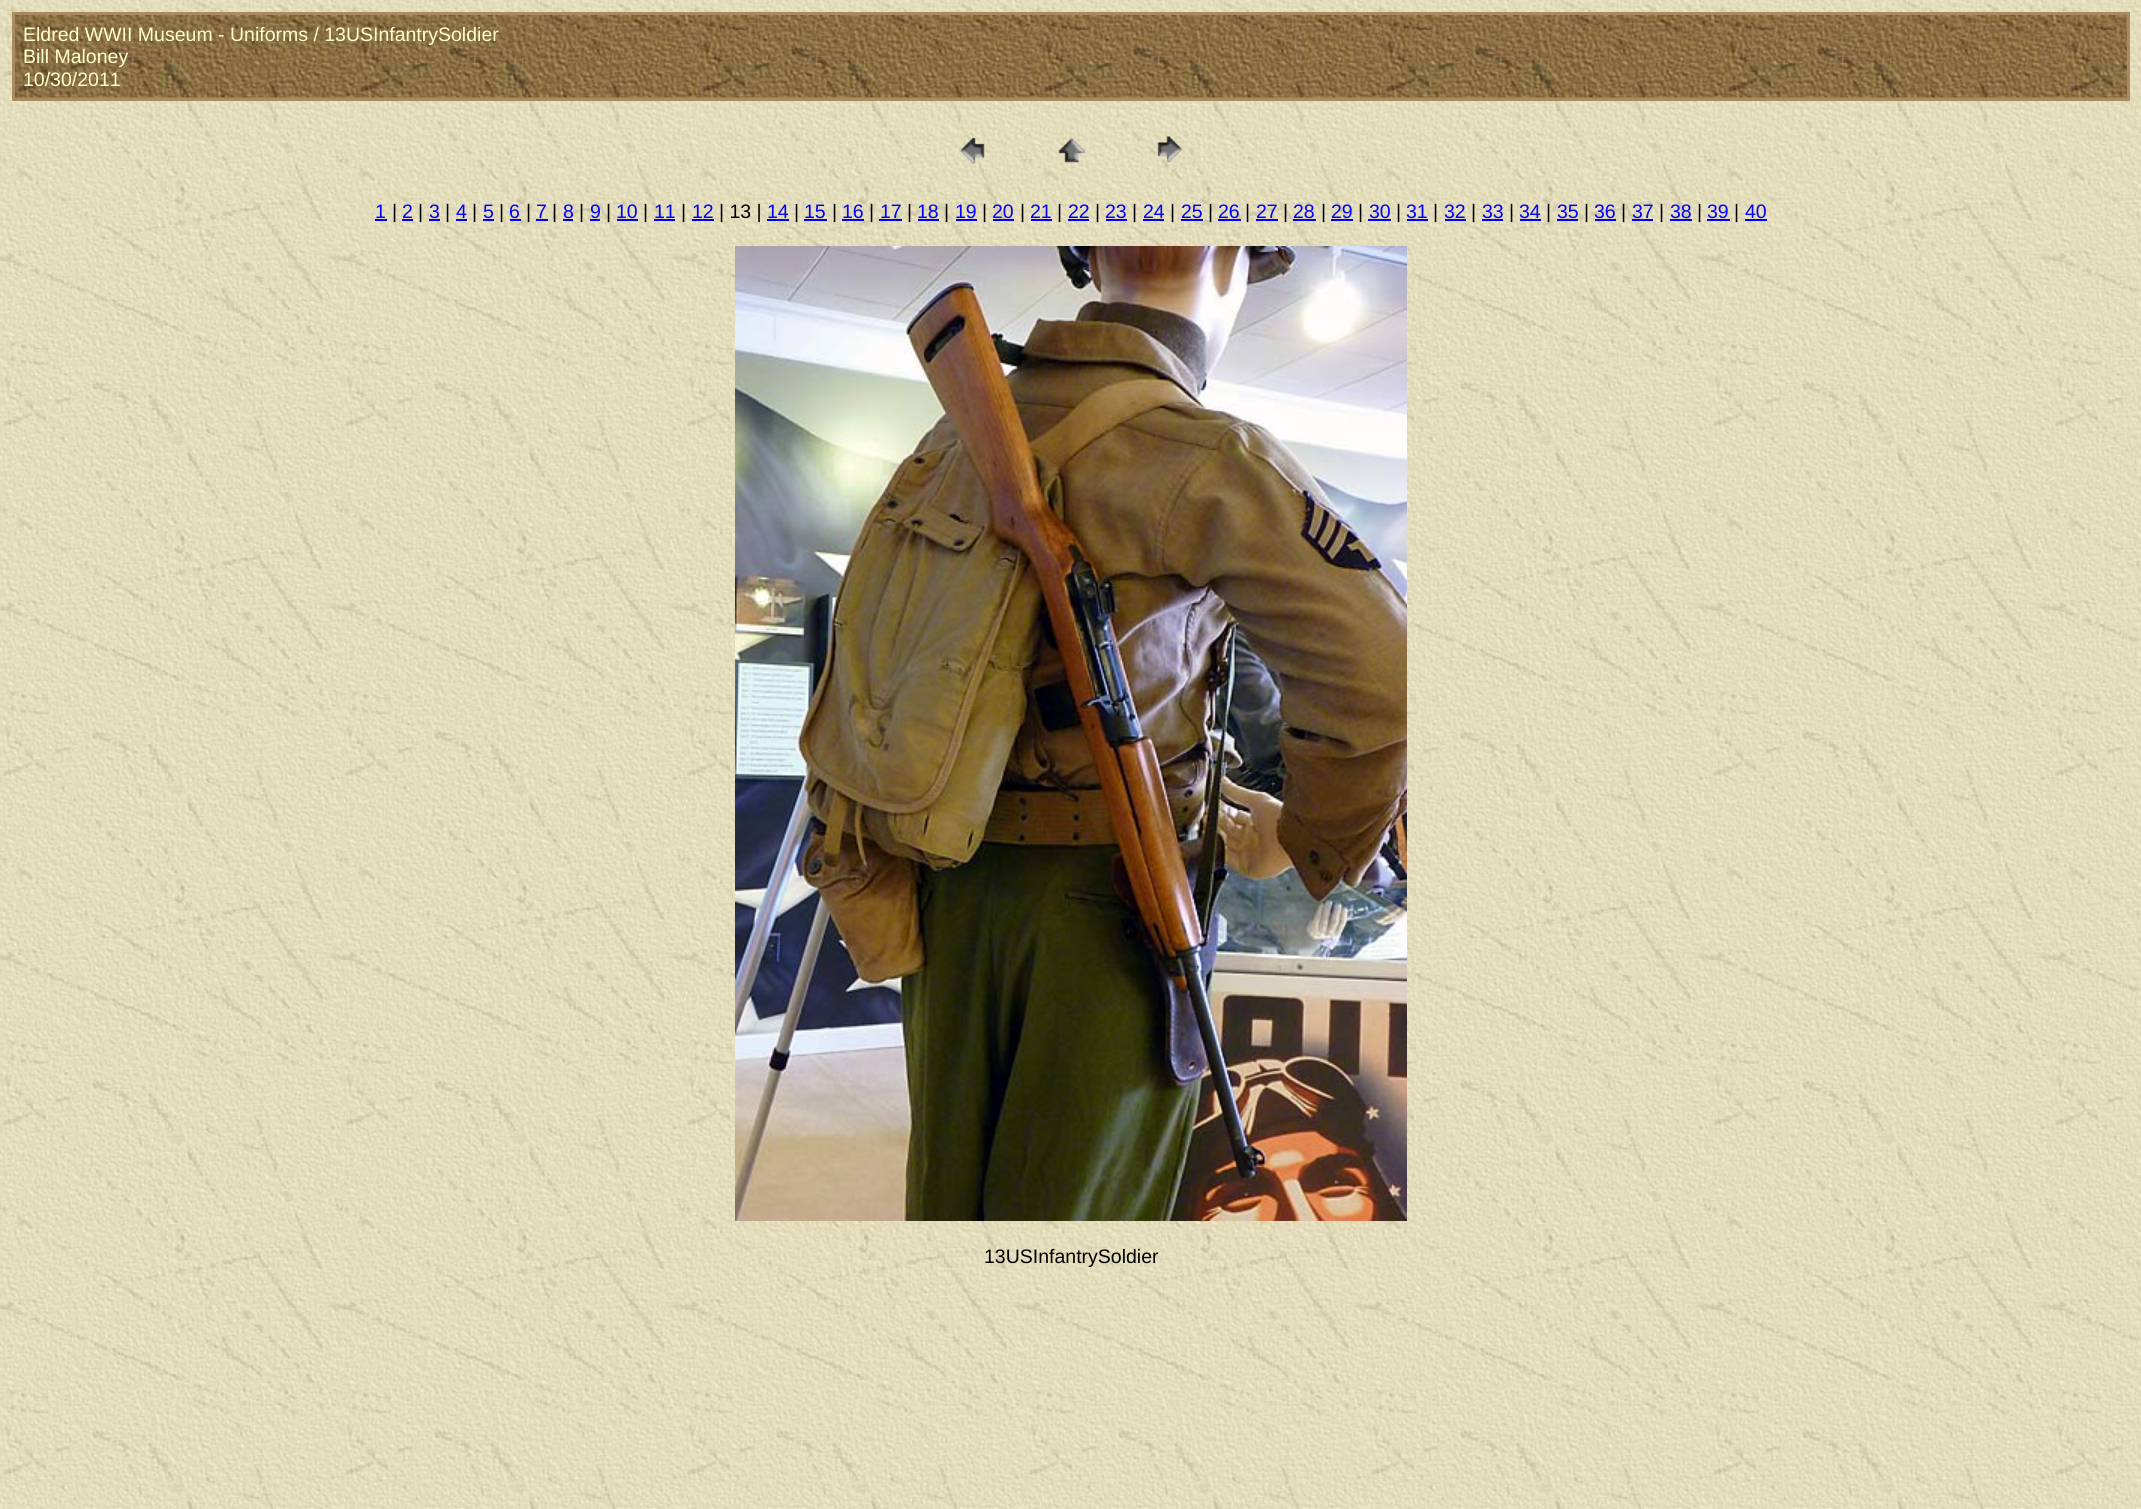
#include <cairo.h>
#include <math.h>
#include <stddef.h>

typedef struct { double x, y; const char *s; } line_t;

static void ink(cairo_t *ctx, unsigned color) {
    cairo_set_source_rgb(ctx, (color >> 16) / 255.0, (color >> 8 & 255) / 255.0, (color & 255) / 255.0);
}

static void paste(cairo_t *ctx, const char *path, double x, double y, double w, double h) {
    cairo_surface_t *image = cairo_image_surface_create_from_png(path);
    cairo_save(ctx);
    cairo_set_source_surface(ctx, image, x, y);
    cairo_rectangle(ctx, x, y, w, h);
    cairo_fill(ctx);
    cairo_restore(ctx);
    cairo_surface_destroy(image);
}

int main(void) {
    cairo_surface_t *surface = cairo_image_surface_create(CAIRO_FORMAT_RGB24, 2141, 1509);
    cairo_t *ctx = cairo_create(surface);
    cairo_font_options_t *options = cairo_font_options_create();
    cairo_font_options_set_hint_metrics(options, CAIRO_HINT_METRICS_OFF);
    cairo_font_options_set_hint_style(options, CAIRO_HINT_STYLE_NONE);
    cairo_set_font_options(ctx, options);
    cairo_set_miter_limit(ctx, 4);
    ink(ctx, 0xFFFFFF);
    cairo_paint(ctx);
    paste(ctx, "media/1.png", 0, 0, 2141, 1509);
    ink(ctx, 0xA98C5D);
    cairo_rectangle(ctx, 12, 12, 2118, 89);
    cairo_fill(ctx);
    paste(ctx, "media/2.png", 15, 15, 2112, 83);
    cairo_select_font_face(ctx, "Liberation Sans", CAIRO_FONT_SLANT_NORMAL, CAIRO_FONT_WEIGHT_NORMAL);
    cairo_set_font_size(ctx, 19.5);
    ink(ctx, 0xFFFFCC);
    {
        static const line_t items[] = {
            {23, 41, "Eldred WWII Museum - Uniforms / 13USInfantrySoldier"},
            {23, 63, "Bill Maloney"},
            {23, 86, "10/30/2011"},
        };
        for (size_t i = 0; i < sizeof items / sizeof *items; i++) {
            cairo_move_to(ctx, items[i].x, items[i].y);
            cairo_show_text(ctx, items[i].s);
        }
    }
    paste(ctx, "media/3.png", 959, 137, 26, 27);
    paste(ctx, "media/4.png", 1058, 137, 27, 26);
    paste(ctx, "media/5.png", 1157, 136, 26, 27);
    ink(ctx, 0x0000FF);
    cairo_move_to(ctx, 375, 218);
    cairo_show_text(ctx, "1");
    cairo_rectangle(ctx, 375, 219, 12, 2);
    cairo_fill(ctx);
    ink(ctx, 0x000000);
    cairo_move_to(ctx, 392, 218);
    cairo_show_text(ctx, "|");
    ink(ctx, 0x0000FF);
    cairo_move_to(ctx, 402, 218);
    cairo_show_text(ctx, "2");
    cairo_rectangle(ctx, 402, 219, 11, 2);
    cairo_fill(ctx);
    ink(ctx, 0x000000);
    cairo_move_to(ctx, 418, 218);
    cairo_show_text(ctx, "|");
    ink(ctx, 0x0000FF);
    cairo_move_to(ctx, 429, 218);
    cairo_show_text(ctx, "3");
    cairo_rectangle(ctx, 429, 219, 11, 2);
    cairo_fill(ctx);
    ink(ctx, 0x000000);
    cairo_move_to(ctx, 445, 218);
    cairo_show_text(ctx, "|");
    ink(ctx, 0x0000FF);
    cairo_move_to(ctx, 456, 218);
    cairo_show_text(ctx, "4");
    cairo_rectangle(ctx, 456, 219, 11, 2);
    cairo_fill(ctx);
    ink(ctx, 0x000000);
    cairo_move_to(ctx, 472, 218);
    cairo_show_text(ctx, "|");
    ink(ctx, 0x0000FF);
    cairo_move_to(ctx, 483, 218);
    cairo_show_text(ctx, "5");
    cairo_rectangle(ctx, 483, 219, 11, 2);
    cairo_fill(ctx);
    ink(ctx, 0x000000);
    cairo_move_to(ctx, 499, 218);
    cairo_show_text(ctx, "|");
    ink(ctx, 0x0000FF);
    cairo_move_to(ctx, 509, 218);
    cairo_show_text(ctx, "6");
    cairo_rectangle(ctx, 510, 219, 11, 2);
    cairo_fill(ctx);
    ink(ctx, 0x000000);
    cairo_move_to(ctx, 526, 218);
    cairo_show_text(ctx, "|");
    ink(ctx, 0x0000FF);
    cairo_move_to(ctx, 536, 218);
    cairo_show_text(ctx, "7");
    cairo_rectangle(ctx, 536, 219, 12, 2);
    cairo_fill(ctx);
    ink(ctx, 0x000000);
    cairo_move_to(ctx, 552, 218);
    cairo_show_text(ctx, "|");
    ink(ctx, 0x0000FF);
    cairo_move_to(ctx, 563, 218);
    cairo_show_text(ctx, "8");
    cairo_rectangle(ctx, 563, 219, 10, 2);
    cairo_fill(ctx);
    ink(ctx, 0x000000);
    cairo_move_to(ctx, 579, 218);
    cairo_show_text(ctx, "|");
    ink(ctx, 0x0000FF);
    cairo_move_to(ctx, 590, 218);
    cairo_show_text(ctx, "9");
    cairo_rectangle(ctx, 590, 219, 10, 2);
    cairo_fill(ctx);
    ink(ctx, 0x000000);
    cairo_move_to(ctx, 606, 218);
    cairo_show_text(ctx, "|");
    ink(ctx, 0x0000FF);
    cairo_move_to(ctx, 616, 218);
    cairo_show_text(ctx, "10");
    cairo_rectangle(ctx, 617, 219, 21, 2);
    cairo_fill(ctx);
    ink(ctx, 0x000000);
    cairo_move_to(ctx, 643, 218);
    cairo_show_text(ctx, "|");
    ink(ctx, 0x0000FF);
    cairo_move_to(ctx, 654, 218);
    cairo_show_text(ctx, "11");
    cairo_rectangle(ctx, 654, 219, 21, 2);
    cairo_fill(ctx);
    ink(ctx, 0x000000);
    cairo_move_to(ctx, 681, 218);
    cairo_show_text(ctx, "|");
    ink(ctx, 0x0000FF);
    cairo_move_to(ctx, 692, 218);
    cairo_show_text(ctx, "12");
    cairo_rectangle(ctx, 692, 219, 22, 2);
    cairo_fill(ctx);
    ink(ctx, 0x000000);
    cairo_move_to(ctx, 719, 218);
    cairo_show_text(ctx, "| 13 |");
    ink(ctx, 0x0000FF);
    cairo_move_to(ctx, 767, 218);
    cairo_show_text(ctx, "14");
    cairo_rectangle(ctx, 767, 219, 22, 2);
    cairo_fill(ctx);
    ink(ctx, 0x000000);
    cairo_move_to(ctx, 794, 218);
    cairo_show_text(ctx, "|");
    ink(ctx, 0x0000FF);
    cairo_move_to(ctx, 804, 218);
    cairo_show_text(ctx, "15");
    cairo_rectangle(ctx, 804, 219, 23, 2);
    cairo_fill(ctx);
    ink(ctx, 0x000000);
    cairo_move_to(ctx, 832, 218);
    cairo_show_text(ctx, "|");
    ink(ctx, 0x0000FF);
    cairo_move_to(ctx, 842, 218);
    cairo_show_text(ctx, "16");
    cairo_rectangle(ctx, 842, 219, 22, 2);
    cairo_fill(ctx);
    ink(ctx, 0x000000);
    cairo_move_to(ctx, 869, 218);
    cairo_show_text(ctx, "|");
    ink(ctx, 0x0000FF);
    cairo_move_to(ctx, 880, 218);
    cairo_show_text(ctx, "17");
    cairo_rectangle(ctx, 879, 219, 23, 2);
    cairo_fill(ctx);
    ink(ctx, 0x000000);
    cairo_move_to(ctx, 907, 218);
    cairo_show_text(ctx, "|");
    ink(ctx, 0x0000FF);
    cairo_move_to(ctx, 917, 218);
    cairo_show_text(ctx, "18");
    cairo_rectangle(ctx, 918, 219, 21, 2);
    cairo_fill(ctx);
    ink(ctx, 0x000000);
    cairo_move_to(ctx, 944, 218);
    cairo_show_text(ctx, "|");
    ink(ctx, 0x0000FF);
    cairo_move_to(ctx, 955, 218);
    cairo_show_text(ctx, "19");
    cairo_rectangle(ctx, 956, 219, 21, 2);
    cairo_fill(ctx);
    ink(ctx, 0x000000);
    cairo_move_to(ctx, 982, 218);
    cairo_show_text(ctx, "|");
    ink(ctx, 0x0000FF);
    cairo_move_to(ctx, 992, 218);
    cairo_show_text(ctx, "20");
    cairo_rectangle(ctx, 993, 219, 21, 2);
    cairo_fill(ctx);
    ink(ctx, 0x000000);
    cairo_move_to(ctx, 1020, 218);
    cairo_show_text(ctx, "|");
    ink(ctx, 0x0000FF);
    cairo_move_to(ctx, 1030, 218);
    cairo_show_text(ctx, "21");
    cairo_rectangle(ctx, 1031, 219, 21, 2);
    cairo_fill(ctx);
    ink(ctx, 0x000000);
    cairo_move_to(ctx, 1057, 218);
    cairo_show_text(ctx, "|");
    ink(ctx, 0x0000FF);
    cairo_move_to(ctx, 1068, 218);
    cairo_show_text(ctx, "22");
    cairo_rectangle(ctx, 1068, 219, 21, 2);
    cairo_fill(ctx);
    ink(ctx, 0x000000);
    cairo_move_to(ctx, 1095, 218);
    cairo_show_text(ctx, "|");
    ink(ctx, 0x0000FF);
    cairo_move_to(ctx, 1105, 218);
    cairo_show_text(ctx, "23");
    cairo_rectangle(ctx, 1106, 219, 21, 2);
    cairo_fill(ctx);
    ink(ctx, 0x000000);
    cairo_move_to(ctx, 1132, 218);
    cairo_show_text(ctx, "|");
    ink(ctx, 0x0000FF);
    cairo_move_to(ctx, 1143, 218);
    cairo_show_text(ctx, "24");
    cairo_rectangle(ctx, 1143, 219, 21, 2);
    cairo_fill(ctx);
    ink(ctx, 0x000000);
    cairo_move_to(ctx, 1170, 218);
    cairo_show_text(ctx, "|");
    ink(ctx, 0x0000FF);
    cairo_move_to(ctx, 1181, 218);
    cairo_show_text(ctx, "25");
    cairo_rectangle(ctx, 1181, 219, 22, 2);
    cairo_fill(ctx);
    ink(ctx, 0x000000);
    cairo_move_to(ctx, 1208, 218);
    cairo_show_text(ctx, "|");
    ink(ctx, 0x0000FF);
    cairo_move_to(ctx, 1218, 218);
    cairo_show_text(ctx, "26");
    cairo_rectangle(ctx, 1218, 219, 23, 2);
    cairo_fill(ctx);
    ink(ctx, 0x000000);
    cairo_move_to(ctx, 1245, 218);
    cairo_show_text(ctx, "|");
    ink(ctx, 0x0000FF);
    cairo_move_to(ctx, 1256, 218);
    cairo_show_text(ctx, "27");
    cairo_rectangle(ctx, 1256, 219, 22, 2);
    cairo_fill(ctx);
    ink(ctx, 0x000000);
    cairo_move_to(ctx, 1283, 218);
    cairo_show_text(ctx, "|");
    ink(ctx, 0x0000FF);
    cairo_move_to(ctx, 1293, 218);
    cairo_show_text(ctx, "28");
    cairo_rectangle(ctx, 1293, 219, 23, 2);
    cairo_fill(ctx);
    ink(ctx, 0x000000);
    cairo_move_to(ctx, 1321, 218);
    cairo_show_text(ctx, "|");
    ink(ctx, 0x0000FF);
    cairo_move_to(ctx, 1331, 218);
    cairo_show_text(ctx, "29");
    cairo_rectangle(ctx, 1331, 219, 22, 2);
    cairo_fill(ctx);
    ink(ctx, 0x000000);
    cairo_move_to(ctx, 1358, 218);
    cairo_show_text(ctx, "|");
    ink(ctx, 0x0000FF);
    cairo_move_to(ctx, 1369, 218);
    cairo_show_text(ctx, "30");
    cairo_rectangle(ctx, 1368, 219, 23, 2);
    cairo_fill(ctx);
    ink(ctx, 0x000000);
    cairo_move_to(ctx, 1396, 218);
    cairo_show_text(ctx, "|");
    ink(ctx, 0x0000FF);
    cairo_move_to(ctx, 1406, 218);
    cairo_show_text(ctx, "31");
    cairo_rectangle(ctx, 1407, 219, 21, 2);
    cairo_fill(ctx);
    ink(ctx, 0x000000);
    cairo_move_to(ctx, 1433, 218);
    cairo_show_text(ctx, "|");
    ink(ctx, 0x0000FF);
    cairo_move_to(ctx, 1444, 218);
    cairo_show_text(ctx, "32");
    cairo_rectangle(ctx, 1445, 219, 21, 2);
    cairo_fill(ctx);
    ink(ctx, 0x000000);
    cairo_move_to(ctx, 1471, 218);
    cairo_show_text(ctx, "|");
    ink(ctx, 0x0000FF);
    cairo_move_to(ctx, 1482, 218);
    cairo_show_text(ctx, "33");
    cairo_rectangle(ctx, 1482, 219, 21, 2);
    cairo_fill(ctx);
    ink(ctx, 0x000000);
    cairo_move_to(ctx, 1509, 218);
    cairo_show_text(ctx, "|");
    ink(ctx, 0x0000FF);
    cairo_move_to(ctx, 1519, 218);
    cairo_show_text(ctx, "34");
    cairo_rectangle(ctx, 1520, 219, 21, 2);
    cairo_fill(ctx);
    ink(ctx, 0x000000);
    cairo_move_to(ctx, 1546, 218);
    cairo_show_text(ctx, "|");
    ink(ctx, 0x0000FF);
    cairo_move_to(ctx, 1557, 218);
    cairo_show_text(ctx, "35");
    cairo_rectangle(ctx, 1557, 219, 21, 2);
    cairo_fill(ctx);
    ink(ctx, 0x000000);
    cairo_move_to(ctx, 1584, 218);
    cairo_show_text(ctx, "|");
    ink(ctx, 0x0000FF);
    cairo_move_to(ctx, 1594, 218);
    cairo_show_text(ctx, "36");
    cairo_rectangle(ctx, 1595, 219, 21, 2);
    cairo_fill(ctx);
    ink(ctx, 0x000000);
    cairo_move_to(ctx, 1621, 218);
    cairo_show_text(ctx, "|");
    ink(ctx, 0x0000FF);
    cairo_move_to(ctx, 1632, 218);
    cairo_show_text(ctx, "37");
    cairo_rectangle(ctx, 1632, 219, 21, 2);
    cairo_fill(ctx);
    ink(ctx, 0x000000);
    cairo_move_to(ctx, 1659, 218);
    cairo_show_text(ctx, "|");
    ink(ctx, 0x0000FF);
    cairo_move_to(ctx, 1670, 218);
    cairo_show_text(ctx, "38");
    cairo_rectangle(ctx, 1670, 219, 22, 2);
    cairo_fill(ctx);
    ink(ctx, 0x000000);
    cairo_move_to(ctx, 1697, 218);
    cairo_show_text(ctx, "|");
    ink(ctx, 0x0000FF);
    cairo_move_to(ctx, 1707, 218);
    cairo_show_text(ctx, "39");
    cairo_rectangle(ctx, 1707, 219, 23, 2);
    cairo_fill(ctx);
    ink(ctx, 0x000000);
    cairo_move_to(ctx, 1734, 218);
    cairo_show_text(ctx, "|");
    ink(ctx, 0x0000FF);
    cairo_move_to(ctx, 1745, 218);
    cairo_show_text(ctx, "40");
    cairo_rectangle(ctx, 1745, 219, 22, 2);
    cairo_fill(ctx);
    paste(ctx, "media/6.png", 735, 246, 672, 975);
    ink(ctx, 0x000000);
    cairo_move_to(ctx, 984, 1263);
    cairo_show_text(ctx, "13USInfantrySoldier");
    cairo_surface_write_to_png(surface, "image.png");
    cairo_font_options_destroy(options);
    cairo_destroy(ctx);
    cairo_surface_destroy(surface);
    return 0;
}
